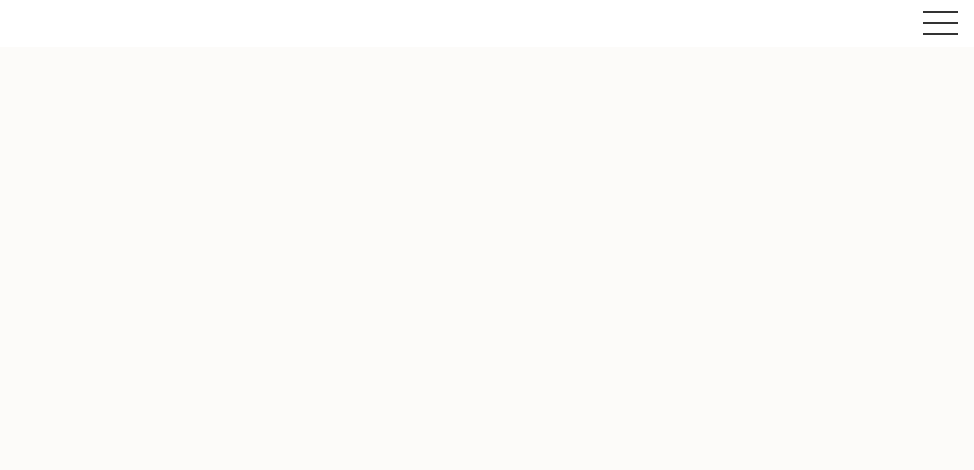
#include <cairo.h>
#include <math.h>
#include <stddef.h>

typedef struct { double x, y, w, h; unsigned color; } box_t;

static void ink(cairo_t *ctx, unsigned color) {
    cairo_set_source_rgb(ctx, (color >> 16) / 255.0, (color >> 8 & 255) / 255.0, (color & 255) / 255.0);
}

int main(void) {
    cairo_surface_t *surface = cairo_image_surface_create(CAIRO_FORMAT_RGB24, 974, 470);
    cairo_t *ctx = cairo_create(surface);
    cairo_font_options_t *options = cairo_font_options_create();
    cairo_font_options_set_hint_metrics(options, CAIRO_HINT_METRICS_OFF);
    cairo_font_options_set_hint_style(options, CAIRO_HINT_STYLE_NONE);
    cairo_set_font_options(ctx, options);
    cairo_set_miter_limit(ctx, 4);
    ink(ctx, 0xFCFBF9);
    cairo_paint(ctx);
    {
        static const box_t items[] = {
            {0, 0, 974, 47, 0xFFFFFF},
            {923, 11, 35, 2, 0x333333},
            {923, 22, 35, 2, 0x333333},
            {923, 33, 35, 2, 0x333333},
        };
        for (size_t i = 0; i < sizeof items / sizeof *items; i++) {
            ink(ctx, items[i].color);
            cairo_rectangle(ctx, items[i].x, items[i].y, items[i].w, items[i].h);
            cairo_fill(ctx);
        }
    }
    cairo_surface_write_to_png(surface, "image.png");
    cairo_font_options_destroy(options);
    cairo_destroy(ctx);
    cairo_surface_destroy(surface);
    return 0;
}
